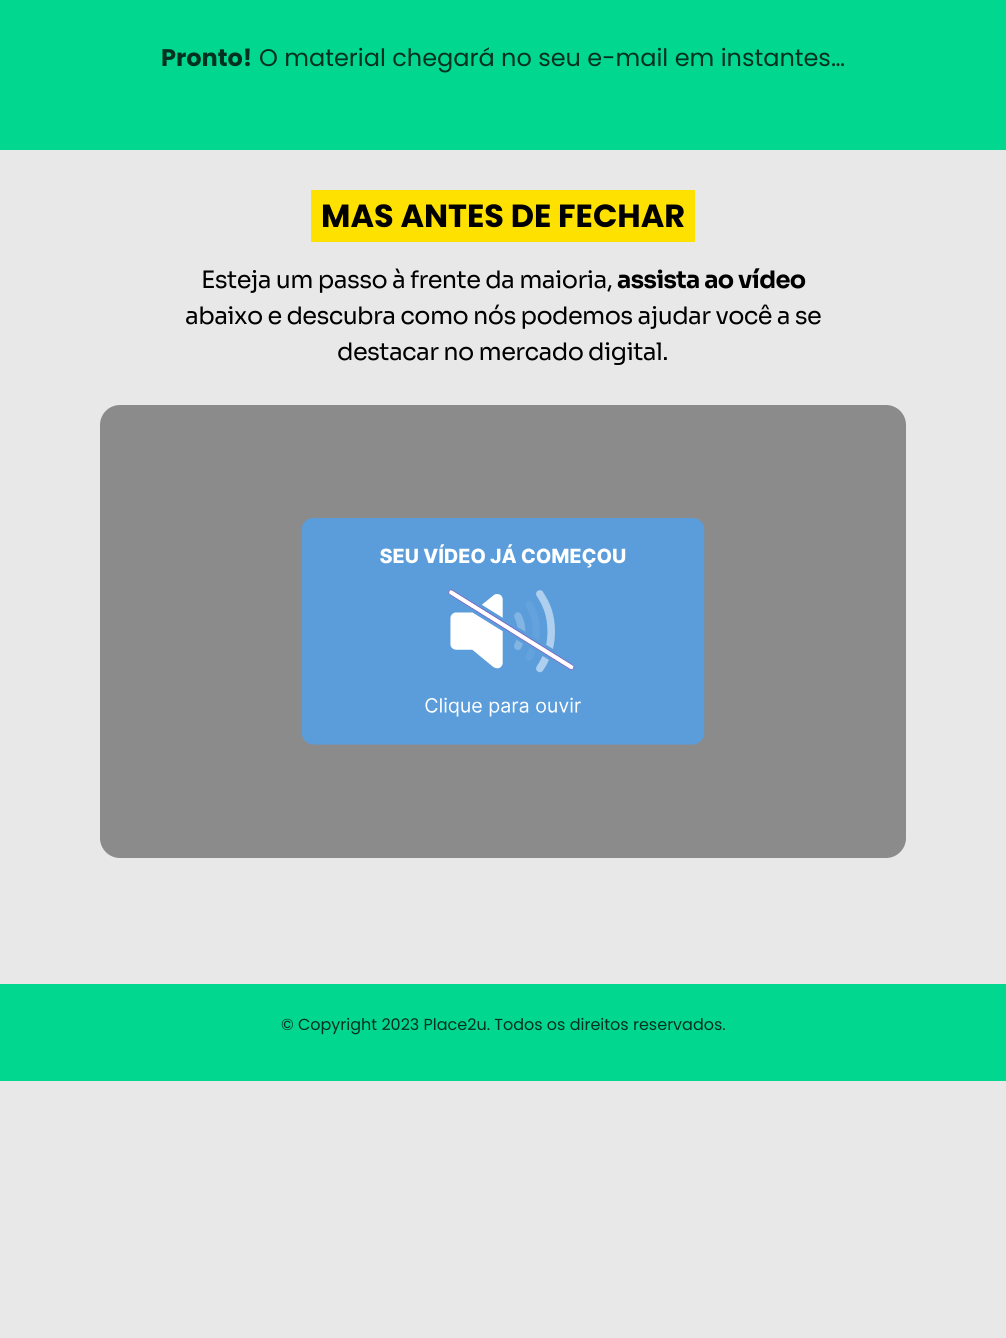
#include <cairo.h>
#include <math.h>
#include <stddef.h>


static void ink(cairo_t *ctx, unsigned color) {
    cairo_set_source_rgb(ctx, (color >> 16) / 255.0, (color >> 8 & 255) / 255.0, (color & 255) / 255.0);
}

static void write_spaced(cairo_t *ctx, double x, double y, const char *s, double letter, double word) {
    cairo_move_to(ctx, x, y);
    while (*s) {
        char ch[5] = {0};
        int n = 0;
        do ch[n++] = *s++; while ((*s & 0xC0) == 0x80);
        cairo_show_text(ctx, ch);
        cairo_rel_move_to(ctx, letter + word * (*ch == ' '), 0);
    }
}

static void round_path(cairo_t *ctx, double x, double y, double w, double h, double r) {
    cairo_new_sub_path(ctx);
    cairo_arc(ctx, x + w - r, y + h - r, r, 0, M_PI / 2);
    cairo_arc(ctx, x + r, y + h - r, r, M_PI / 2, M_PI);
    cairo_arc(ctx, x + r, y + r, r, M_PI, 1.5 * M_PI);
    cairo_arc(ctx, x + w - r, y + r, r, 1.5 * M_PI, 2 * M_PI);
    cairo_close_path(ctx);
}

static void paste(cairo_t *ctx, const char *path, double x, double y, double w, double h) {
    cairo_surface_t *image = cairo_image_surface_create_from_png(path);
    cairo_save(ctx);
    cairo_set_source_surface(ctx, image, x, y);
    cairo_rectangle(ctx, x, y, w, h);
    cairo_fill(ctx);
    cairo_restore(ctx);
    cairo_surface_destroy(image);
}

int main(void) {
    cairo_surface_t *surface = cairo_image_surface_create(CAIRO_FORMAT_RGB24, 1006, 1338);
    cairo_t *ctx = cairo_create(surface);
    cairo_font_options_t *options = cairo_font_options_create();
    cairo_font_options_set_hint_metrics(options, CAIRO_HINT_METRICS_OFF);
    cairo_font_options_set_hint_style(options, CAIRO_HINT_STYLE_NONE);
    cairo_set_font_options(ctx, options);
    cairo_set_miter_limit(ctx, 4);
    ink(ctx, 0xE8E8E8);
    cairo_paint(ctx);
    ink(ctx, 0x01D78F);
    cairo_rectangle(ctx, 0, 0, 1006, 150);
    cairo_fill(ctx);
    cairo_select_font_face(ctx, "Poppins", CAIRO_FONT_SLANT_NORMAL, CAIRO_FONT_WEIGHT_BOLD);
    cairo_set_font_size(ctx, 24);
    ink(ctx, 0x013121);
    cairo_move_to(ctx, 161, 66);
    cairo_show_text(ctx, "Pronto!");
    cairo_select_font_face(ctx, "Poppins", CAIRO_FONT_SLANT_NORMAL, CAIRO_FONT_WEIGHT_NORMAL);
    cairo_move_to(ctx, 259, 66);
    cairo_show_text(ctx, "O material chegará no seu e-mail em instantes…");
    ink(ctx, 0xFFE100);
    cairo_rectangle(ctx, 311, 190, 384, 52);
    cairo_fill(ctx);
    cairo_select_font_face(ctx, "Poppins", CAIRO_FONT_SLANT_NORMAL, CAIRO_FONT_WEIGHT_BOLD);
    cairo_set_font_size(ctx, 32);
    ink(ctx, 0x000000);
    cairo_move_to(ctx, 321, 227);
    cairo_show_text(ctx, "MAS ANTES DE FECHAR");
    cairo_select_font_face(ctx, "Sora", CAIRO_FONT_SLANT_NORMAL, CAIRO_FONT_WEIGHT_NORMAL);
    cairo_set_font_size(ctx, 24);
    write_spaced(ctx, 201, 288, "Esteja um passo à frente da maioria,", -0.6, 0);
    cairo_select_font_face(ctx, "Sora", CAIRO_FONT_SLANT_NORMAL, CAIRO_FONT_WEIGHT_BOLD);
    write_spaced(ctx, 617, 288, "assista ao vídeo", -0.6, 0);
    cairo_select_font_face(ctx, "Sora", CAIRO_FONT_SLANT_NORMAL, CAIRO_FONT_WEIGHT_NORMAL);
    write_spaced(ctx, 185, 324, "abaixo e descubra como nós podemos ajudar você a se", -0.6, 0);
    write_spaced(ctx, 337, 360, "destacar no mercado digital.", -0.6, 0);
    ink(ctx, 0x8B8B8B);
    round_path(ctx, 100, 405, 806, 453, 20);
    cairo_fill(ctx);
    paste(ctx, "media/1.png", 302, 518, 403, 227);
    ink(ctx, 0x01D78F);
    cairo_rectangle(ctx, 0, 984, 1006, 97);
    cairo_fill(ctx);
    cairo_select_font_face(ctx, "Poppins", CAIRO_FONT_SLANT_NORMAL, CAIRO_FONT_WEIGHT_NORMAL);
    cairo_set_font_size(ctx, 16);
    ink(ctx, 0x013121);
    cairo_move_to(ctx, 281, 1030);
    cairo_show_text(ctx, "© Copyright 2023 Place2u. Todos os direitos reservados.");
    cairo_surface_write_to_png(surface, "image.png");
    cairo_font_options_destroy(options);
    cairo_destroy(ctx);
    cairo_surface_destroy(surface);
    return 0;
}
